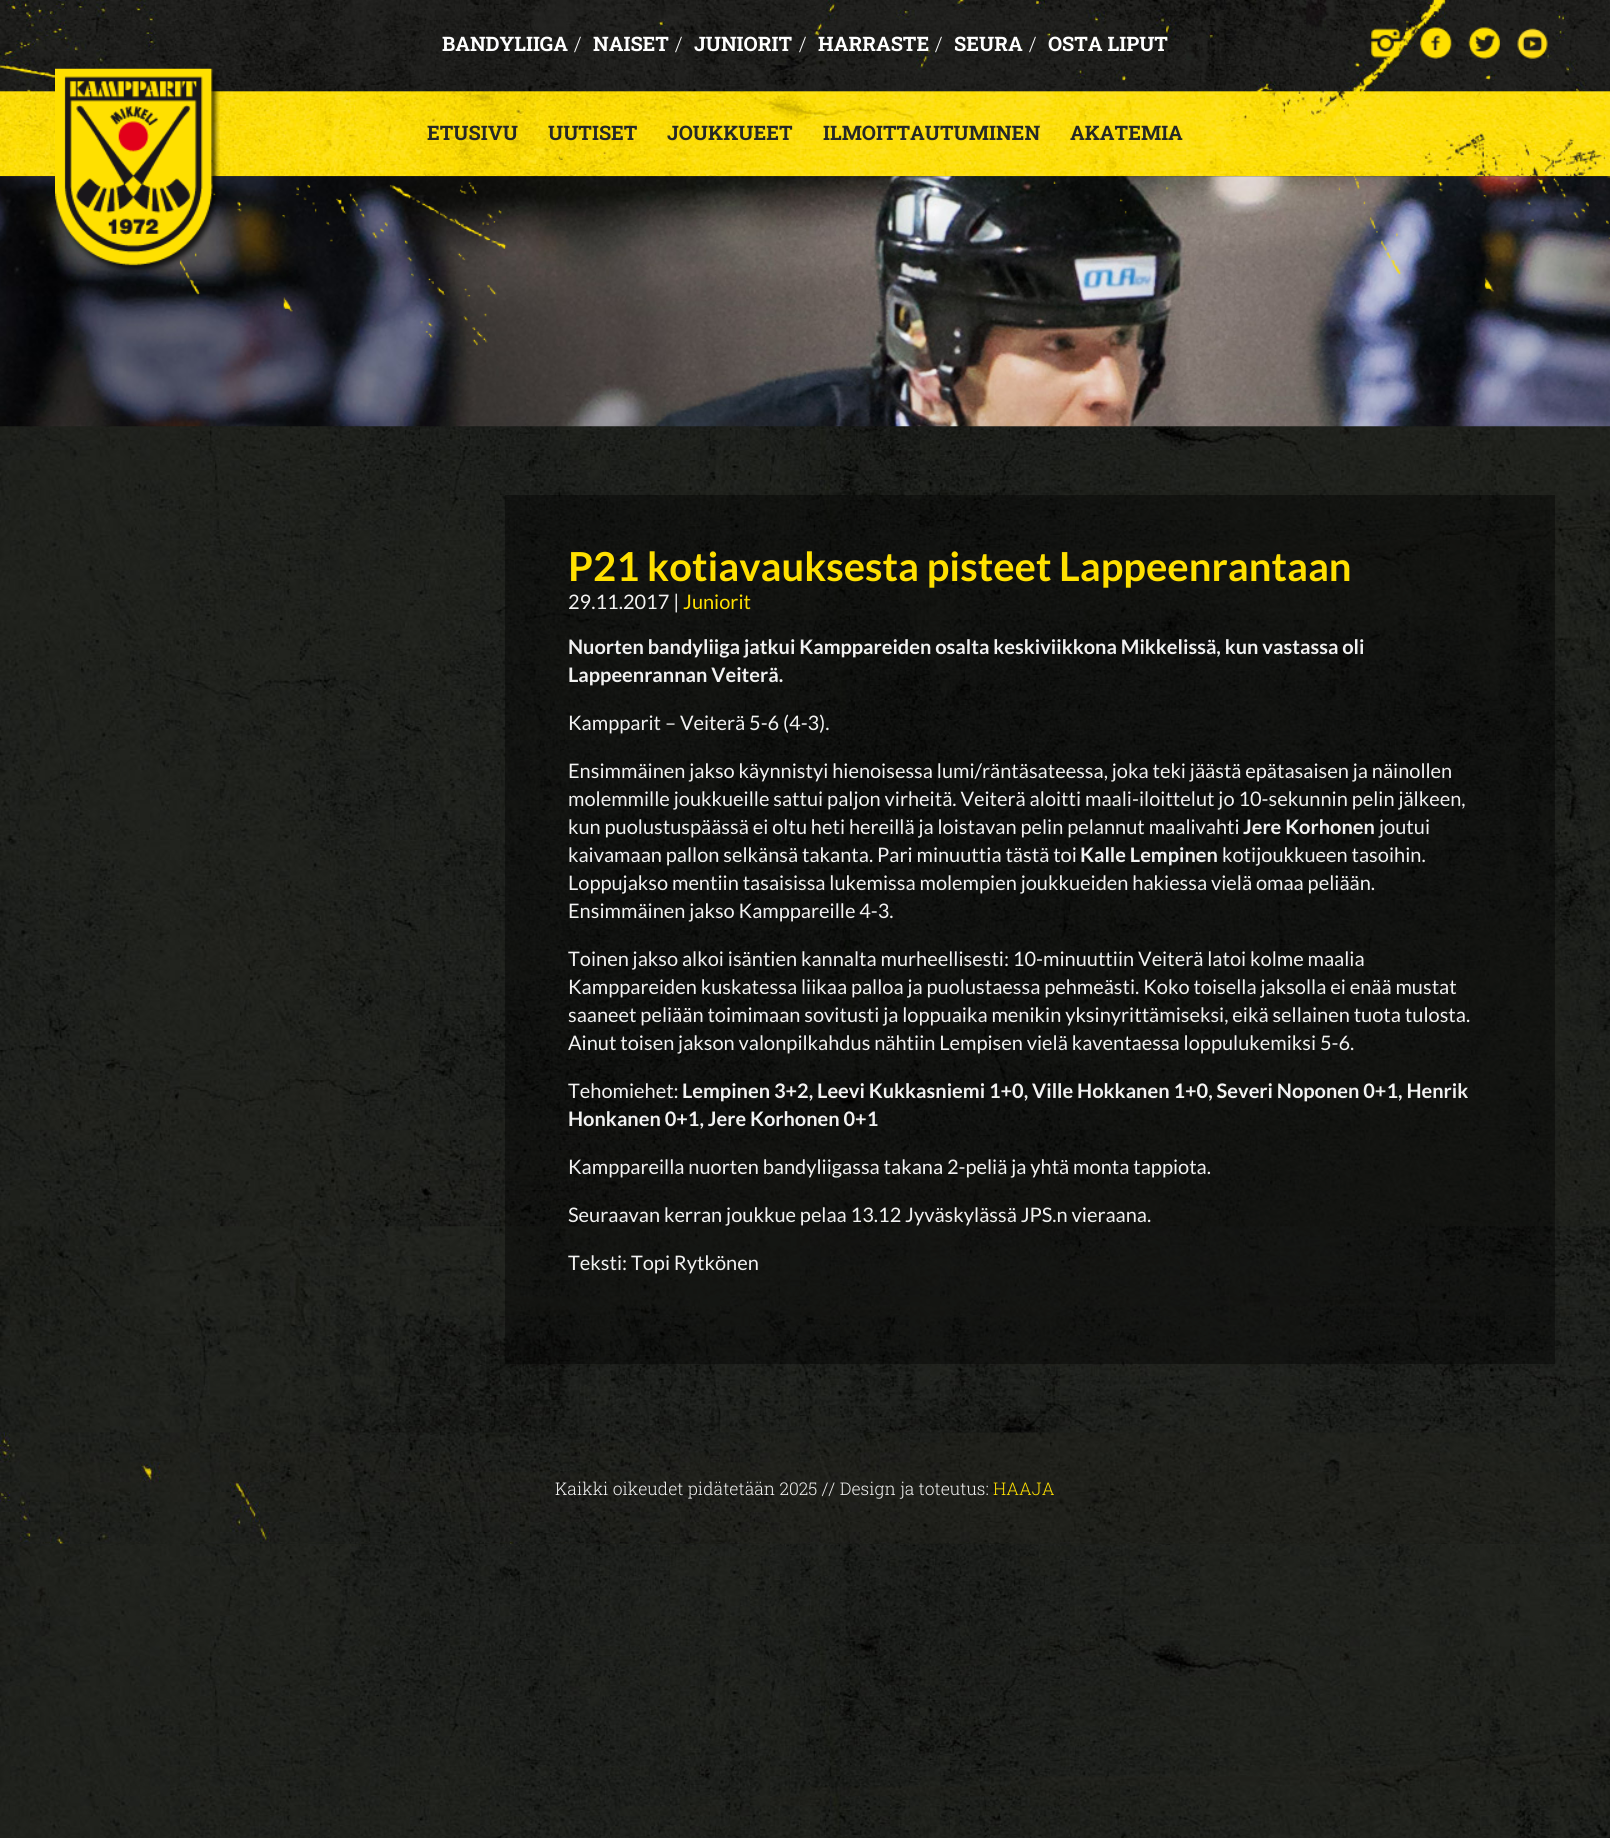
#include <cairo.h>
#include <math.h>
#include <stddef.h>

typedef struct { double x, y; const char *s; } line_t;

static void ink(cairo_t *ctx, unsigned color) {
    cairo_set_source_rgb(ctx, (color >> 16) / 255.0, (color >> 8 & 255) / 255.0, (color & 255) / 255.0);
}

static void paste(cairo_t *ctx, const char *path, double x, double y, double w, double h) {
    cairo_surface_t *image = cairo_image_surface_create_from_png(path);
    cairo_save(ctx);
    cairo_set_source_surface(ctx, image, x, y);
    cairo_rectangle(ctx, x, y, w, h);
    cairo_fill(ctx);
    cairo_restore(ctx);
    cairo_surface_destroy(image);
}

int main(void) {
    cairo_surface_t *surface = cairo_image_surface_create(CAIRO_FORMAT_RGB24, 1610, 1838);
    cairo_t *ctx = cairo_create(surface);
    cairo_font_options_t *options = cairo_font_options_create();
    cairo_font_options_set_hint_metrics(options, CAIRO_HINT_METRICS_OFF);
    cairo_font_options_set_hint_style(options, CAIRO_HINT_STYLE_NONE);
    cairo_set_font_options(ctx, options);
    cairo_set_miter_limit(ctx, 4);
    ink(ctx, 0xFFFFFF);
    cairo_paint(ctx);
    paste(ctx, "media/1.png", 0, 176, 1610, 1662);
    paste(ctx, "media/2.png", 0, 0, 1610, 177);
    cairo_select_font_face(ctx, "Roboto Slab", CAIRO_FONT_SLANT_NORMAL, CAIRO_FONT_WEIGHT_BOLD);
    cairo_set_font_size(ctx, 20);
    ink(ctx, 0xFFFFFF);
    cairo_move_to(ctx, 442, 51);
    cairo_show_text(ctx, "BANDYLIIGA");
    cairo_select_font_face(ctx, "Roboto Slab Light", CAIRO_FONT_SLANT_NORMAL, CAIRO_FONT_WEIGHT_NORMAL);
    cairo_move_to(ctx, 574, 51);
    cairo_show_text(ctx, "/");
    cairo_select_font_face(ctx, "Roboto Slab", CAIRO_FONT_SLANT_NORMAL, CAIRO_FONT_WEIGHT_BOLD);
    cairo_move_to(ctx, 593, 51);
    cairo_show_text(ctx, "NAISET");
    cairo_select_font_face(ctx, "Roboto Slab Light", CAIRO_FONT_SLANT_NORMAL, CAIRO_FONT_WEIGHT_NORMAL);
    cairo_move_to(ctx, 675, 51);
    cairo_show_text(ctx, "/");
    cairo_select_font_face(ctx, "Roboto Slab", CAIRO_FONT_SLANT_NORMAL, CAIRO_FONT_WEIGHT_BOLD);
    cairo_move_to(ctx, 694, 51);
    cairo_show_text(ctx, "JUNIORIT");
    cairo_select_font_face(ctx, "Roboto Slab Light", CAIRO_FONT_SLANT_NORMAL, CAIRO_FONT_WEIGHT_NORMAL);
    cairo_move_to(ctx, 799, 51);
    cairo_show_text(ctx, "/");
    cairo_select_font_face(ctx, "Roboto Slab", CAIRO_FONT_SLANT_NORMAL, CAIRO_FONT_WEIGHT_BOLD);
    cairo_move_to(ctx, 818, 51);
    cairo_show_text(ctx, "HARRASTE");
    cairo_select_font_face(ctx, "Roboto Slab Light", CAIRO_FONT_SLANT_NORMAL, CAIRO_FONT_WEIGHT_NORMAL);
    cairo_move_to(ctx, 935, 51);
    cairo_show_text(ctx, "/");
    cairo_select_font_face(ctx, "Roboto Slab", CAIRO_FONT_SLANT_NORMAL, CAIRO_FONT_WEIGHT_BOLD);
    cairo_move_to(ctx, 954, 51);
    cairo_show_text(ctx, "SEURA");
    cairo_select_font_face(ctx, "Roboto Slab Light", CAIRO_FONT_SLANT_NORMAL, CAIRO_FONT_WEIGHT_NORMAL);
    cairo_move_to(ctx, 1029, 51);
    cairo_show_text(ctx, "/");
    cairo_select_font_face(ctx, "Roboto Slab", CAIRO_FONT_SLANT_NORMAL, CAIRO_FONT_WEIGHT_BOLD);
    cairo_move_to(ctx, 1048, 51);
    cairo_show_text(ctx, "OSTA LIPUT");
    paste(ctx, "media/3.png", 1371, 28, 30, 30);
    paste(ctx, "media/4.png", 1420, 27, 32, 32);
    paste(ctx, "media/5.png", 1468, 27, 32, 32);
    paste(ctx, "media/6.png", 1517, 28, 31, 31);
    paste(ctx, "media/8.png", 0, 176, 1610, 251);
    paste(ctx, "media/9.png", 175, 182, 332, 164);
    paste(ctx, "media/7.png", 55, 68, 165, 205);
    ink(ctx, 0x252826);
    {
        static const line_t items[] = {
            {427, 140, "ETUSIVU"},
            {548, 140, "UUTISET"},
            {667, 140, "JOUKKUEET"},
            {823, 140, "ILMOITTAUTUMINEN"},
            {1070, 140, "AKATEMIA"},
        };
        for (size_t i = 0; i < sizeof items / sizeof *items; i++) {
            cairo_move_to(ctx, items[i].x, items[i].y);
            cairo_show_text(ctx, items[i].s);
        }
    }
    paste(ctx, "media/10.png", 1053, 176, 557, 117);
    cairo_set_source_rgba(ctx, 0, 0, 0, 0.4);
    cairo_rectangle(ctx, 505, 495, 1050, 869);
    cairo_fill(ctx);
    cairo_select_font_face(ctx, "Lato", CAIRO_FONT_SLANT_NORMAL, CAIRO_FONT_WEIGHT_BOLD);
    cairo_set_font_size(ctx, 40);
    ink(ctx, 0xFFE000);
    cairo_move_to(ctx, 568, 581);
    cairo_show_text(ctx, "P21 kotiavauksesta pisteet Lappeenrantaan");
    cairo_select_font_face(ctx, "Lato", CAIRO_FONT_SLANT_NORMAL, CAIRO_FONT_WEIGHT_NORMAL);
    cairo_set_font_size(ctx, 20);
    ink(ctx, 0xF2F2F2);
    cairo_move_to(ctx, 568, 609);
    cairo_show_text(ctx, "29.11.2017 |");
    ink(ctx, 0xFFE000);
    cairo_move_to(ctx, 683, 609);
    cairo_show_text(ctx, "Juniorit");
    cairo_select_font_face(ctx, "Lato", CAIRO_FONT_SLANT_NORMAL, CAIRO_FONT_WEIGHT_BOLD);
    ink(ctx, 0xF2F2F2);
    cairo_move_to(ctx, 568, 654);
    cairo_show_text(ctx, "Nuorten bandyliiga jatkui Kamppareiden osalta keskiviikkona Mikkelissä, kun vastassa oli");
    cairo_move_to(ctx, 568, 682);
    cairo_show_text(ctx, "Lappeenrannan Veiterä.");
    cairo_select_font_face(ctx, "Lato", CAIRO_FONT_SLANT_NORMAL, CAIRO_FONT_WEIGHT_NORMAL);
    {
        static const line_t items[] = {
            {568, 730, "Kampparit – Veiterä 5-6 (4-3)."},
            {568, 778, "Ensimmäinen jakso käynnistyi hienoisessa lumi/räntäsateessa, joka teki jäästä epätasaisen ja näinollen"},
            {568, 806, "molemmille joukkueille sattui paljon virheitä. Veiterä aloitti maali-iloittelut jo 10-sekunnin pelin jälkeen,"},
            {568, 834, "kun puolustuspäässä ei oltu heti hereillä ja loistavan pelin pelannut maalivahti"},
        };
        for (size_t i = 0; i < sizeof items / sizeof *items; i++) {
            cairo_move_to(ctx, items[i].x, items[i].y);
            cairo_show_text(ctx, items[i].s);
        }
    }
    cairo_select_font_face(ctx, "Lato", CAIRO_FONT_SLANT_NORMAL, CAIRO_FONT_WEIGHT_BOLD);
    cairo_move_to(ctx, 1243, 834);
    cairo_show_text(ctx, "Jere Korhonen");
    cairo_select_font_face(ctx, "Lato", CAIRO_FONT_SLANT_NORMAL, CAIRO_FONT_WEIGHT_NORMAL);
    cairo_move_to(ctx, 1379, 834);
    cairo_show_text(ctx, "joutui");
    cairo_move_to(ctx, 568, 862);
    cairo_show_text(ctx, "kaivamaan pallon selkänsä takanta. Pari minuuttia tästä toi");
    cairo_select_font_face(ctx, "Lato", CAIRO_FONT_SLANT_NORMAL, CAIRO_FONT_WEIGHT_BOLD);
    cairo_move_to(ctx, 1080, 862);
    cairo_show_text(ctx, "Kalle Lempinen");
    cairo_select_font_face(ctx, "Lato", CAIRO_FONT_SLANT_NORMAL, CAIRO_FONT_WEIGHT_NORMAL);
    {
        static const line_t items[] = {
            {1222, 862, "kotijoukkueen tasoihin."},
            {568, 890, "Loppujakso mentiin tasaisissa lukemissa molempien joukkueiden hakiessa vielä omaa peliään."},
            {568, 918, "Ensimmäinen jakso Kamppareille 4-3."},
            {568, 966, "Toinen jakso alkoi isäntien kannalta murheellisesti: 10-minuuttiin Veiterä latoi kolme maalia"},
            {568, 994, "Kamppareiden kuskatessa liikaa palloa ja puolustaessa pehmeästi. Koko toisella jaksolla ei enää mustat"},
            {568, 1022, "saaneet peliään toimimaan sovitusti ja loppuaika menikin yksinyrittämiseksi, eikä sellainen tuota tulosta."},
            {568, 1050, "Ainut toisen jakson valonpilkahdus nähtiin Lempisen vielä kaventaessa loppulukemiksi 5-6."},
            {568, 1098, "Tehomiehet:"},
        };
        for (size_t i = 0; i < sizeof items / sizeof *items; i++) {
            cairo_move_to(ctx, items[i].x, items[i].y);
            cairo_show_text(ctx, items[i].s);
        }
    }
    cairo_select_font_face(ctx, "Lato", CAIRO_FONT_SLANT_NORMAL, CAIRO_FONT_WEIGHT_BOLD);
    cairo_move_to(ctx, 682, 1098);
    cairo_show_text(ctx, "Lempinen 3+2, Leevi Kukkasniemi 1+0, Ville Hokkanen 1+0, Severi Noponen 0+1, Henrik");
    cairo_move_to(ctx, 568, 1126);
    cairo_show_text(ctx, "Honkanen 0+1, Jere Korhonen 0+1");
    cairo_select_font_face(ctx, "Lato", CAIRO_FONT_SLANT_NORMAL, CAIRO_FONT_WEIGHT_NORMAL);
    {
        static const line_t items[] = {
            {568, 1174, "Kamppareilla nuorten bandyliigassa takana 2-peliä ja yhtä monta tappiota."},
            {568, 1222, "Seuraavan kerran joukkue pelaa 13.12 Jyväskylässä JPS.n vieraana."},
            {568, 1270, "Teksti: Topi Rytkönen"},
        };
        for (size_t i = 0; i < sizeof items / sizeof *items; i++) {
            cairo_move_to(ctx, items[i].x, items[i].y);
            cairo_show_text(ctx, items[i].s);
        }
    }
    paste(ctx, "media/11.png", 0, 1432, 1610, 112);
    cairo_select_font_face(ctx, "Roboto Slab Light", CAIRO_FONT_SLANT_NORMAL, CAIRO_FONT_WEIGHT_NORMAL);
    cairo_set_font_size(ctx, 17.5);
    cairo_move_to(ctx, 555, 1495);
    cairo_show_text(ctx, "Kaikki oikeudet pidätetään 2025 // Design ja toteutus:");
    ink(ctx, 0xFFE000);
    cairo_move_to(ctx, 993, 1495);
    cairo_show_text(ctx, "HAAJA");
    cairo_surface_write_to_png(surface, "image.png");
    cairo_font_options_destroy(options);
    cairo_destroy(ctx);
    cairo_surface_destroy(surface);
    return 0;
}
